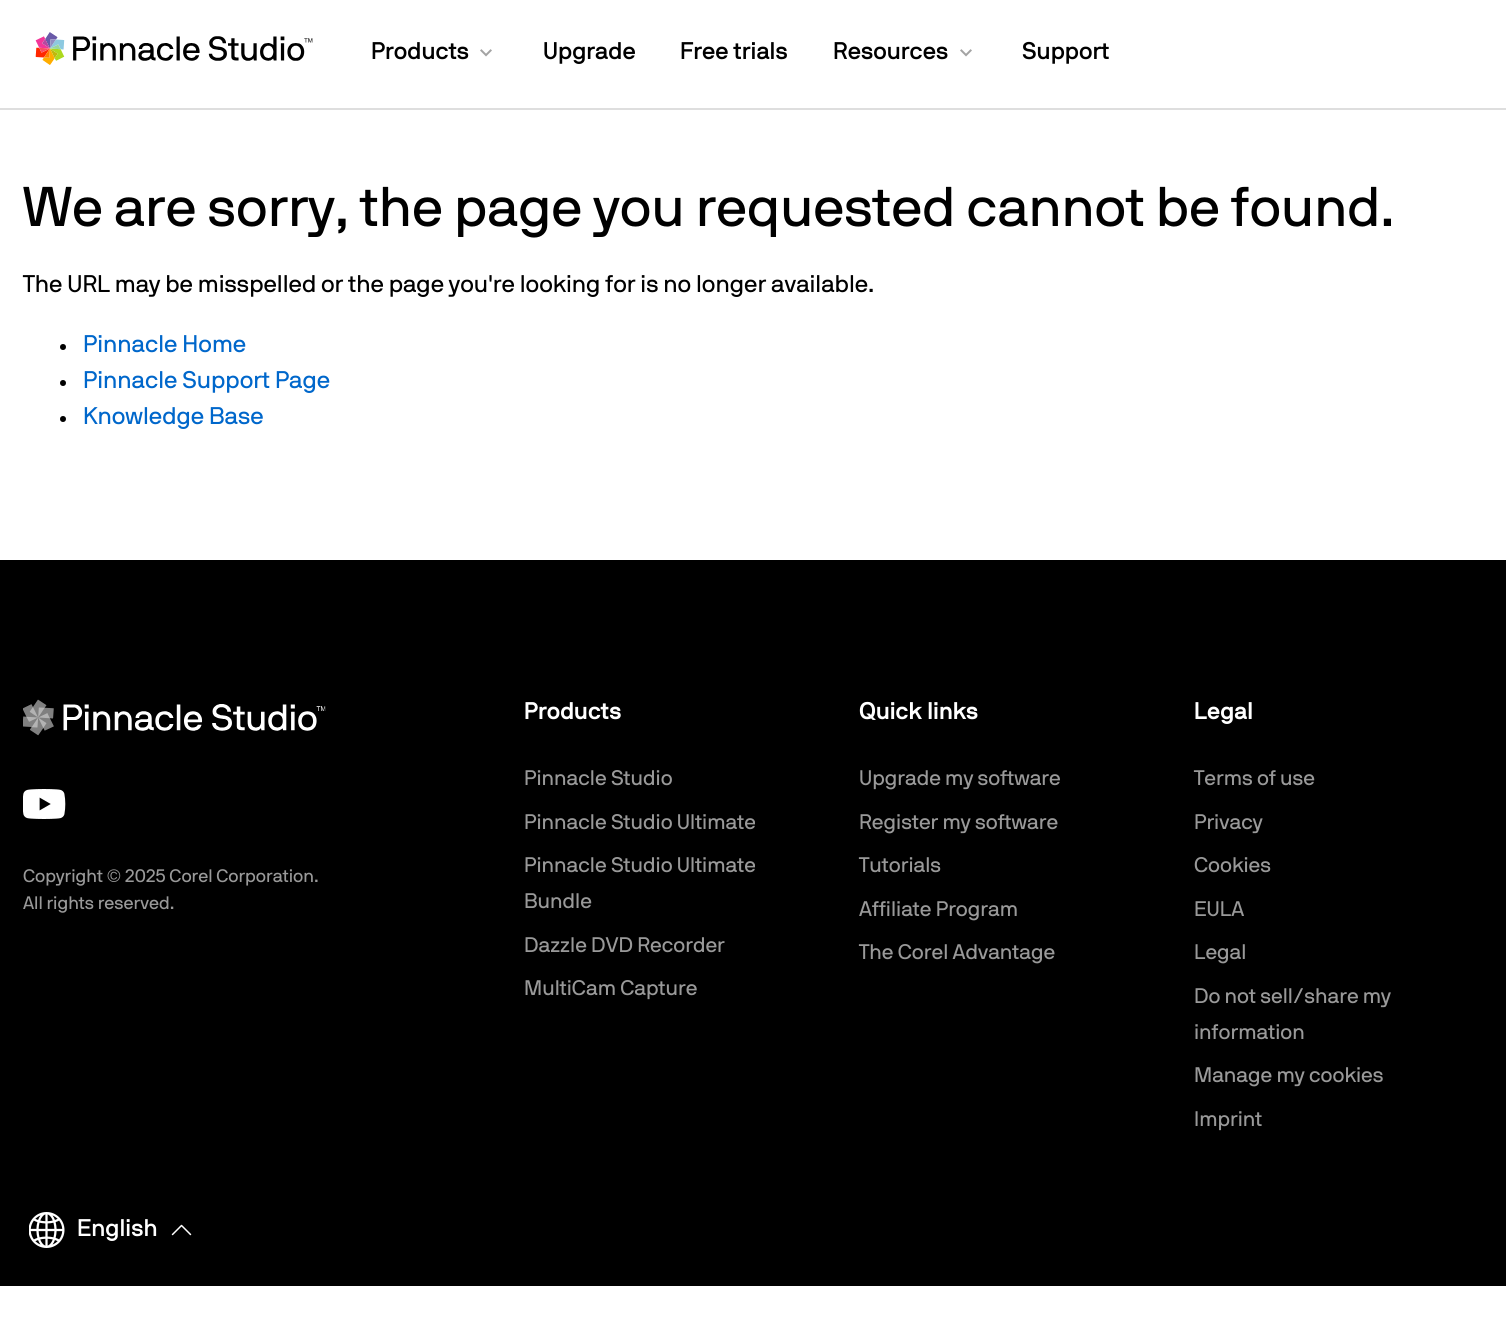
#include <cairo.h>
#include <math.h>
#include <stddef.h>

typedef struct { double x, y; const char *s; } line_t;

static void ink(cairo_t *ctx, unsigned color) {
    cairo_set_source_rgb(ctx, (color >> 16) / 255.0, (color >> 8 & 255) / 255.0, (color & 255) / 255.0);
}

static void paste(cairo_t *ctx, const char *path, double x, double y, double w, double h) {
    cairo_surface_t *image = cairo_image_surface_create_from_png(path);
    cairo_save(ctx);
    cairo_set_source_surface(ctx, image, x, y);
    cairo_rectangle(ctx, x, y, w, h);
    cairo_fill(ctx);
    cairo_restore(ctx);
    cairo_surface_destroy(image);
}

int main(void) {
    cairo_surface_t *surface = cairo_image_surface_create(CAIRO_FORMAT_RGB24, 1506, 1335);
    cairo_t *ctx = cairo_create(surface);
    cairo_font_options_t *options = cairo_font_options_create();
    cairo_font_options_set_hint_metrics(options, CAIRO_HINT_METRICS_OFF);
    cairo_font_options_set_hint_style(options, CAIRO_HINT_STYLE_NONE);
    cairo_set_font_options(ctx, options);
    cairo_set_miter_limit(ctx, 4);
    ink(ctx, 0xFFFFFF);
    cairo_paint(ctx);
    ink(ctx, 0xDEDEDE);
    cairo_rectangle(ctx, 0, 108, 1506, 2);
    cairo_fill(ctx);
    paste(ctx, "media/1.png", 35, 32, 278, 33);
    cairo_select_font_face(ctx, "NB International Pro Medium", CAIRO_FONT_SLANT_NORMAL, CAIRO_FONT_WEIGHT_NORMAL);
    cairo_set_font_size(ctx, 24);
    ink(ctx, 0x000000);
    cairo_move_to(ctx, 371, 59);
    cairo_show_text(ctx, "Products");
    paste(ctx, "media/2.png", 480, 49, 12, 8);
    {
        static const line_t items[] = {
            {543, 59, "Upgrade"},
            {680, 59, "Free trials"},
            {833, 59, "Resources"},
        };
        for (size_t i = 0; i < sizeof items / sizeof *items; i++) {
            cairo_move_to(ctx, items[i].x, items[i].y);
            cairo_show_text(ctx, items[i].s);
        }
    }
    paste(ctx, "media/2.png", 960, 49, 12, 8);
    cairo_move_to(ctx, 1022, 59);
    cairo_show_text(ctx, "Support");
    cairo_select_font_face(ctx, "NB International Pro", CAIRO_FONT_SLANT_NORMAL, CAIRO_FONT_WEIGHT_NORMAL);
    cairo_set_font_size(ctx, 55.6);
    cairo_move_to(ctx, 23, 226);
    cairo_show_text(ctx, "We are sorry, the page you requested cannot be found.");
    cairo_set_font_size(ctx, 24);
    cairo_move_to(ctx, 23, 292);
    cairo_show_text(ctx, "The URL may be misspelled or the page you're looking for is no longer available.");
    cairo_new_path(ctx);
    cairo_arc(ctx, 63, 347, 3, 0, 2 * M_PI);
    cairo_fill(ctx);
    ink(ctx, 0x0067CB);
    cairo_move_to(ctx, 83, 352);
    cairo_show_text(ctx, "Pinnacle Home");
    ink(ctx, 0x000000);
    cairo_new_path(ctx);
    cairo_arc(ctx, 63, 383, 3, 0, 2 * M_PI);
    cairo_fill(ctx);
    ink(ctx, 0x0067CB);
    cairo_move_to(ctx, 83, 388);
    cairo_show_text(ctx, "Pinnacle Support Page");
    ink(ctx, 0x000000);
    cairo_new_path(ctx);
    cairo_arc(ctx, 63, 419, 3, 0, 2 * M_PI);
    cairo_fill(ctx);
    ink(ctx, 0x0067CB);
    cairo_move_to(ctx, 83, 424);
    cairo_show_text(ctx, "Knowledge Base");
    ink(ctx, 0x000000);
    cairo_rectangle(ctx, 0, 560, 1506, 726);
    cairo_fill(ctx);
    paste(ctx, "media/3.png", 23, 699, 303, 37);
    paste(ctx, "media/4.png", 23, 789, 43, 30);
    cairo_set_font_size(ctx, 18);
    ink(ctx, 0x999999);
    cairo_move_to(ctx, 23, 882);
    cairo_show_text(ctx, "Copyright © 2025 Corel Corporation.");
    cairo_move_to(ctx, 23, 909);
    cairo_show_text(ctx, "All rights reserved.");
    cairo_select_font_face(ctx, "NB International Pro", CAIRO_FONT_SLANT_NORMAL, CAIRO_FONT_WEIGHT_BOLD);
    cairo_set_font_size(ctx, 24);
    ink(ctx, 0xFFFFFF);
    cairo_move_to(ctx, 524, 719);
    cairo_show_text(ctx, "Products");
    cairo_select_font_face(ctx, "NB International Pro", CAIRO_FONT_SLANT_NORMAL, CAIRO_FONT_WEIGHT_NORMAL);
    cairo_set_font_size(ctx, 21);
    ink(ctx, 0x999999);
    {
        static const line_t items[] = {
            {524, 785, "Pinnacle Studio"},
            {524, 829, "Pinnacle Studio Ultimate"},
            {524, 872, "Pinnacle Studio Ultimate"},
            {524, 908, "Bundle"},
            {524, 952, "Dazzle DVD Recorder"},
            {524, 995, "MultiCam Capture"},
        };
        for (size_t i = 0; i < sizeof items / sizeof *items; i++) {
            cairo_move_to(ctx, items[i].x, items[i].y);
            cairo_show_text(ctx, items[i].s);
        }
    }
    cairo_select_font_face(ctx, "NB International Pro", CAIRO_FONT_SLANT_NORMAL, CAIRO_FONT_WEIGHT_BOLD);
    cairo_set_font_size(ctx, 24);
    ink(ctx, 0xFFFFFF);
    cairo_move_to(ctx, 859, 719);
    cairo_show_text(ctx, "Quick links");
    cairo_select_font_face(ctx, "NB International Pro", CAIRO_FONT_SLANT_NORMAL, CAIRO_FONT_WEIGHT_NORMAL);
    cairo_set_font_size(ctx, 21);
    ink(ctx, 0x999999);
    {
        static const line_t items[] = {
            {859, 785, "Upgrade my software"},
            {859, 829, "Register my software"},
            {859, 872, "Tutorials"},
            {859, 916, "Affiliate Program"},
            {859, 959, "The Corel Advantage"},
        };
        for (size_t i = 0; i < sizeof items / sizeof *items; i++) {
            cairo_move_to(ctx, items[i].x, items[i].y);
            cairo_show_text(ctx, items[i].s);
        }
    }
    cairo_select_font_face(ctx, "NB International Pro", CAIRO_FONT_SLANT_NORMAL, CAIRO_FONT_WEIGHT_BOLD);
    cairo_set_font_size(ctx, 24);
    ink(ctx, 0xFFFFFF);
    cairo_move_to(ctx, 1194, 719);
    cairo_show_text(ctx, "Legal");
    cairo_select_font_face(ctx, "NB International Pro", CAIRO_FONT_SLANT_NORMAL, CAIRO_FONT_WEIGHT_NORMAL);
    cairo_set_font_size(ctx, 21);
    ink(ctx, 0x999999);
    {
        static const line_t items[] = {
            {1194, 785, "Terms of use"},
            {1194, 829, "Privacy"},
            {1194, 872, "Cookies"},
            {1194, 916, "EULA"},
            {1194, 959, "Legal"},
            {1194, 1003, "Do not sell/share my"},
            {1194, 1039, "information"},
            {1194, 1082, "Manage my cookies"},
            {1194, 1126, "Imprint"},
        };
        for (size_t i = 0; i < sizeof items / sizeof *items; i++) {
            cairo_move_to(ctx, items[i].x, items[i].y);
            cairo_show_text(ctx, items[i].s);
        }
    }
    paste(ctx, "media/5.png", 29, 1212, 36, 36);
    cairo_select_font_face(ctx, "NB International Pro Medium", CAIRO_FONT_SLANT_NORMAL, CAIRO_FONT_WEIGHT_NORMAL);
    cairo_set_font_size(ctx, 24);
    ink(ctx, 0xFFFFFF);
    cairo_move_to(ctx, 77, 1236);
    cairo_show_text(ctx, "English");
    paste(ctx, "media/6.png", 171, 1224, 21, 12);
    cairo_surface_write_to_png(surface, "image.png");
    cairo_font_options_destroy(options);
    cairo_destroy(ctx);
    cairo_surface_destroy(surface);
    return 0;
}
